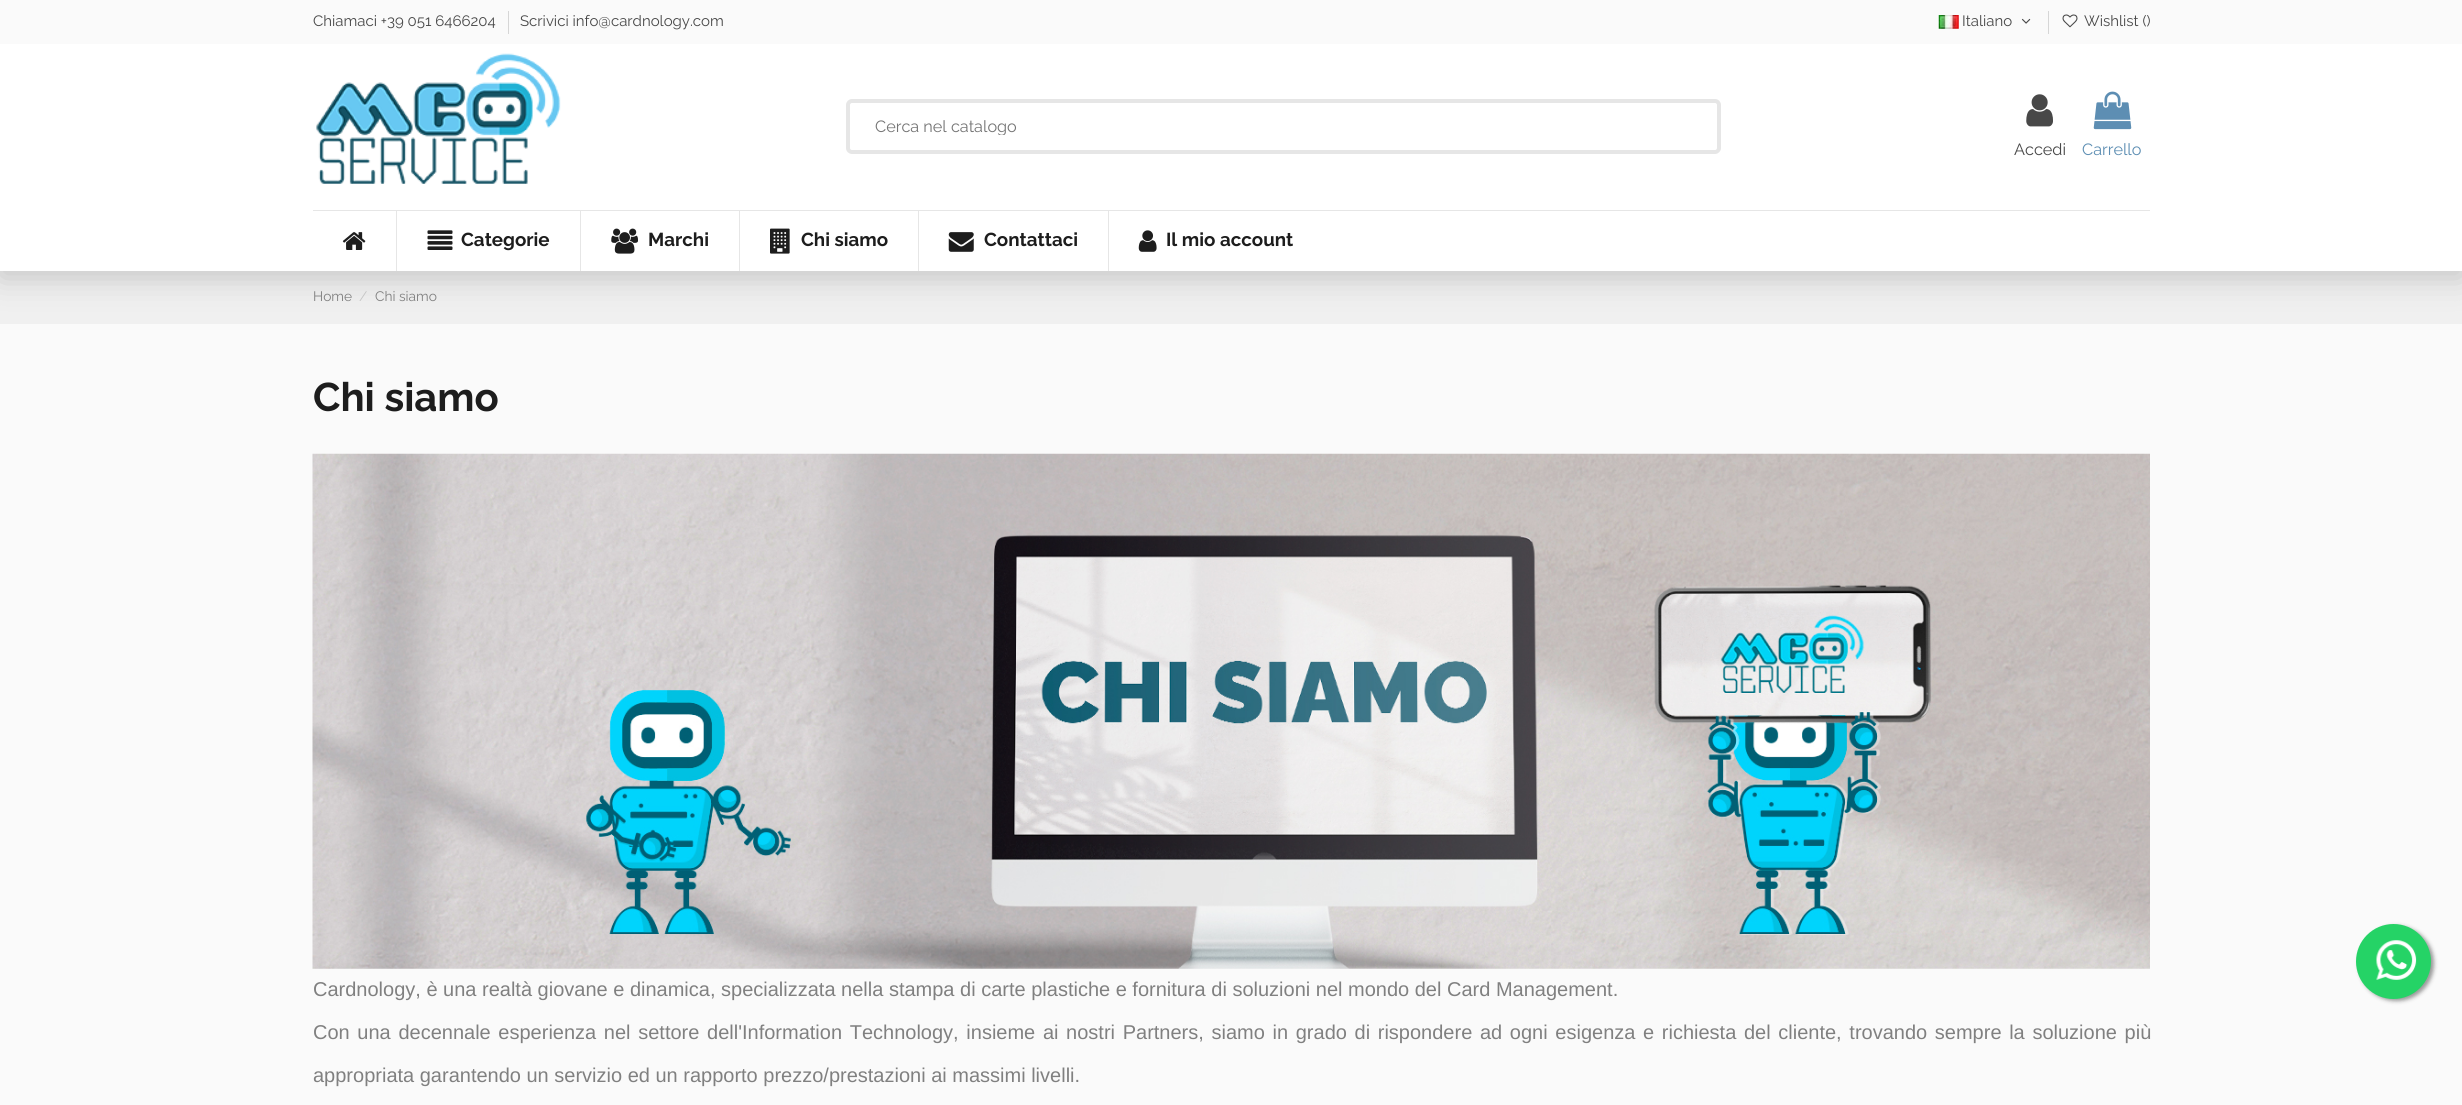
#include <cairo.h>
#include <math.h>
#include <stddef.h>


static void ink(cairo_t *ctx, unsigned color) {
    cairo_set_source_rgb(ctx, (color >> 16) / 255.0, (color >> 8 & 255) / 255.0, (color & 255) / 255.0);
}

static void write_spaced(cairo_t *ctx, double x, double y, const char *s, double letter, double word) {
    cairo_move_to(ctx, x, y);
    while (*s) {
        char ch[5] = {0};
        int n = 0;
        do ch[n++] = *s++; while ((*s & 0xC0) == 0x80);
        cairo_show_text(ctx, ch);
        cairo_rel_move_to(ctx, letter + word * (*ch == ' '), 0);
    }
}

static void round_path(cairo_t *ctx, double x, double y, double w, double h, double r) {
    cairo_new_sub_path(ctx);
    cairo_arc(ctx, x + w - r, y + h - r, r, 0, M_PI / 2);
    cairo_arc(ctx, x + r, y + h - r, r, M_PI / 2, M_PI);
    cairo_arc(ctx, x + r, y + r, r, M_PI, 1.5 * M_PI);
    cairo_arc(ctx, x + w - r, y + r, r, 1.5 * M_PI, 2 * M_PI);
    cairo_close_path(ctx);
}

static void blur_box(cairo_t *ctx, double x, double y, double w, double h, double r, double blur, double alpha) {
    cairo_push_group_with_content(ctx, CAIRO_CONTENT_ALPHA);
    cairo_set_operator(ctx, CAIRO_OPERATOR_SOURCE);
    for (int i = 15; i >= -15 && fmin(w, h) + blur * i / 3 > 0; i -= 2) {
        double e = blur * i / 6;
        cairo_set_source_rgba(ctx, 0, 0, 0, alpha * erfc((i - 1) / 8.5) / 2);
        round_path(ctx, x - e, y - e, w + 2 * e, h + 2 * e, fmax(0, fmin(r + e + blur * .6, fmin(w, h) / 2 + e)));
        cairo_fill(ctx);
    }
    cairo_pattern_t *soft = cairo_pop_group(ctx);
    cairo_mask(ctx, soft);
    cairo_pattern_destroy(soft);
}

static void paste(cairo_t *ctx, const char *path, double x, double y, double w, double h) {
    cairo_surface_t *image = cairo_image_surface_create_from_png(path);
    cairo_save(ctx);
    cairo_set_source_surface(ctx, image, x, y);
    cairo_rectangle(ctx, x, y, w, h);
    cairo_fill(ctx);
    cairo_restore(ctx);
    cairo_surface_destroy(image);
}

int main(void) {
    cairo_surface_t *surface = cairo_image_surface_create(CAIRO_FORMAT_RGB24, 2462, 1105);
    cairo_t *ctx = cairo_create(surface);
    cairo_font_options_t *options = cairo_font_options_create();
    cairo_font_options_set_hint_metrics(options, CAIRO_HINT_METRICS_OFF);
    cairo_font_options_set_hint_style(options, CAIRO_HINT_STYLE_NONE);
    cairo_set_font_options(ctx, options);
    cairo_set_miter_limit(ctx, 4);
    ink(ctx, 0xFAFAFA);
    cairo_paint(ctx);
    ink(ctx, 0xF0F0F0);
    cairo_rectangle(ctx, 0, 271, 2462, 53);
    cairo_fill(ctx);
    ink(ctx, 0x000000);
    blur_box(ctx, 0, 6, 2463, 272, 0, 15.5, 0.18);
    ink(ctx, 0xFFFFFF);
    cairo_rectangle(ctx, 0, 44, 2462, 227);
    cairo_fill(ctx);
    ink(ctx, 0xFAFAFA);
    cairo_rectangle(ctx, 0, 0, 2462, 44);
    cairo_fill(ctx);
    cairo_select_font_face(ctx, "Raleway", CAIRO_FONT_SLANT_NORMAL, CAIRO_FONT_WEIGHT_NORMAL);
    cairo_set_font_size(ctx, 15);
    ink(ctx, 0x484848);
    cairo_move_to(ctx, 313, 26);
    cairo_show_text(ctx, "Chiamaci +39 051 6466204");
    ink(ctx, 0xD6D6D6);
    cairo_rectangle(ctx, 508, 11, 1, 23);
    cairo_fill(ctx);
    ink(ctx, 0x484848);
    cairo_move_to(ctx, 520, 26);
    cairo_show_text(ctx, "Scrivici info@cardnology.com");
    paste(ctx, "media/1.png", 1938, 15, 21, 14);
    cairo_move_to(ctx, 1962, 26);
    cairo_show_text(ctx, "Italiano");
    paste(ctx, "media/2.png", 2021, 18, 10, 6);
    ink(ctx, 0xD6D6D6);
    cairo_rectangle(ctx, 2048, 11, 1, 23);
    cairo_fill(ctx);
    paste(ctx, "media/3.png", 2062, 14, 16, 14);
    ink(ctx, 0x484848);
    cairo_move_to(ctx, 2084, 26);
    cairo_show_text(ctx, "Wishlist ()");
    paste(ctx, "media/4.png", 316, 53, 245, 131);
    round_path(ctx, 848, 101, 871, 51, 4);
    ink(ctx, 0xE6E6E6);
    cairo_set_line_width(ctx, 4);
    cairo_stroke(ctx);
    cairo_save(ctx);
    cairo_rectangle(ctx, 875, 116, 818, 19);
    cairo_clip(ctx);
    cairo_set_font_size(ctx, 16.25);
    ink(ctx, 0x757575);
    cairo_move_to(ctx, 875, 132);
    cairo_show_text(ctx, "Cerca nel catalogo");
    cairo_restore(ctx);
    paste(ctx, "media/5.png", 2026, 94, 27, 33);
    cairo_set_font_size(ctx, 16.25);
    ink(ctx, 0x484848);
    cairo_move_to(ctx, 2014, 155);
    cairo_show_text(ctx, "Accedi");
    paste(ctx, "media/6.png", 2093, 91, 39, 39);
    ink(ctx, 0x5D8EB3);
    cairo_move_to(ctx, 2082, 155);
    cairo_show_text(ctx, "Carrello");
    ink(ctx, 0xE6E6E6);
    cairo_rectangle(ctx, 313, 210, 1837, 1);
    cairo_fill(ctx);
    paste(ctx, "media/7.png", 342, 232, 24, 18);
    cairo_rectangle(ctx, 396, 211, 1, 60);
    cairo_fill(ctx);
    paste(ctx, "media/8.png", 427, 230, 26, 20);
    cairo_select_font_face(ctx, "Raleway", CAIRO_FONT_SLANT_NORMAL, CAIRO_FONT_WEIGHT_BOLD);
    cairo_set_font_size(ctx, 18.75);
    ink(ctx, 0x1D1D1D);
    cairo_move_to(ctx, 461, 246);
    cairo_show_text(ctx, "Categorie");
    ink(ctx, 0xE6E6E6);
    cairo_rectangle(ctx, 580, 211, 1, 60);
    cairo_fill(ctx);
    paste(ctx, "media/9.png", 611, 228, 27, 26);
    ink(ctx, 0x1D1D1D);
    cairo_move_to(ctx, 648, 246);
    cairo_show_text(ctx, "Marchi");
    ink(ctx, 0xE6E6E6);
    cairo_rectangle(ctx, 739, 211, 1, 60);
    cairo_fill(ctx);
    paste(ctx, "media/10.png", 770, 228, 20, 26);
    ink(ctx, 0x1D1D1D);
    cairo_move_to(ctx, 801, 246);
    cairo_show_text(ctx, "Chi siamo");
    ink(ctx, 0xE6E6E6);
    cairo_rectangle(ctx, 918, 211, 1, 60);
    cairo_fill(ctx);
    paste(ctx, "media/11.png", 948, 232, 26, 20);
    ink(ctx, 0x1D1D1D);
    cairo_move_to(ctx, 984, 246);
    cairo_show_text(ctx, "Contattaci");
    ink(ctx, 0xE6E6E6);
    cairo_rectangle(ctx, 1108, 211, 1, 60);
    cairo_fill(ctx);
    paste(ctx, "media/12.png", 1138, 230, 19, 22);
    ink(ctx, 0x1D1D1D);
    cairo_move_to(ctx, 1166, 246);
    cairo_show_text(ctx, "Il mio account");
    cairo_select_font_face(ctx, "Raleway", CAIRO_FONT_SLANT_NORMAL, CAIRO_FONT_WEIGHT_NORMAL);
    cairo_set_font_size(ctx, 13.75);
    ink(ctx, 0x808080);
    cairo_move_to(ctx, 313, 301);
    cairo_show_text(ctx, "Home");
    ink(ctx, 0xC5C5C5);
    cairo_move_to(ctx, 359, 301);
    cairo_show_text(ctx, "/");
    ink(ctx, 0x808080);
    cairo_move_to(ctx, 375, 301);
    cairo_show_text(ctx, "Chi siamo");
    cairo_select_font_face(ctx, "Raleway", CAIRO_FONT_SLANT_NORMAL, CAIRO_FONT_WEIGHT_BOLD);
    cairo_set_font_size(ctx, 40);
    ink(ctx, 0x1D1D1D);
    cairo_move_to(ctx, 313, 411);
    cairo_show_text(ctx, "Chi siamo");
    paste(ctx, "media/13.png", 312, 453, 1838, 516);
    cairo_select_font_face(ctx, "Liberation Sans", CAIRO_FONT_SLANT_NORMAL, CAIRO_FONT_WEIGHT_NORMAL);
    cairo_set_font_size(ctx, 20);
    ink(ctx, 0x808080);
    cairo_move_to(ctx, 313, 996);
    cairo_show_text(ctx, "Cardnology, è una realtà giovane e dinamica, specializzata nella stampa di carte plastiche e fornitura di soluzioni nel mondo del Card Management.");
    write_spaced(ctx, 313, 1039, "Con una decennale esperienza nel settore dell'Information Technology, insieme ai nostri Partners, siamo in grado di rispondere ad ogni esigenza e richiesta del cliente, trovando sempre la soluzione più", 0, 2.1);
    cairo_move_to(ctx, 313, 1082);
    cairo_show_text(ctx, "appropriata garantendo un servizio ed un rapporto prezzo/prestazioni ai massimi livelli.");
    ink(ctx, 0x999999);
    blur_box(ctx, 2359, 926, 75, 75, 37.5, 2, 1);
    ink(ctx, 0x25D366);
    cairo_arc(ctx, 2393.5, 961.5, 37.5, 0, 2 * M_PI);
    cairo_fill(ctx);
    paste(ctx, "media/14.png", 2376, 940, 41, 40);
    cairo_surface_write_to_png(surface, "image.png");
    cairo_font_options_destroy(options);
    cairo_destroy(ctx);
    cairo_surface_destroy(surface);
    return 0;
}
